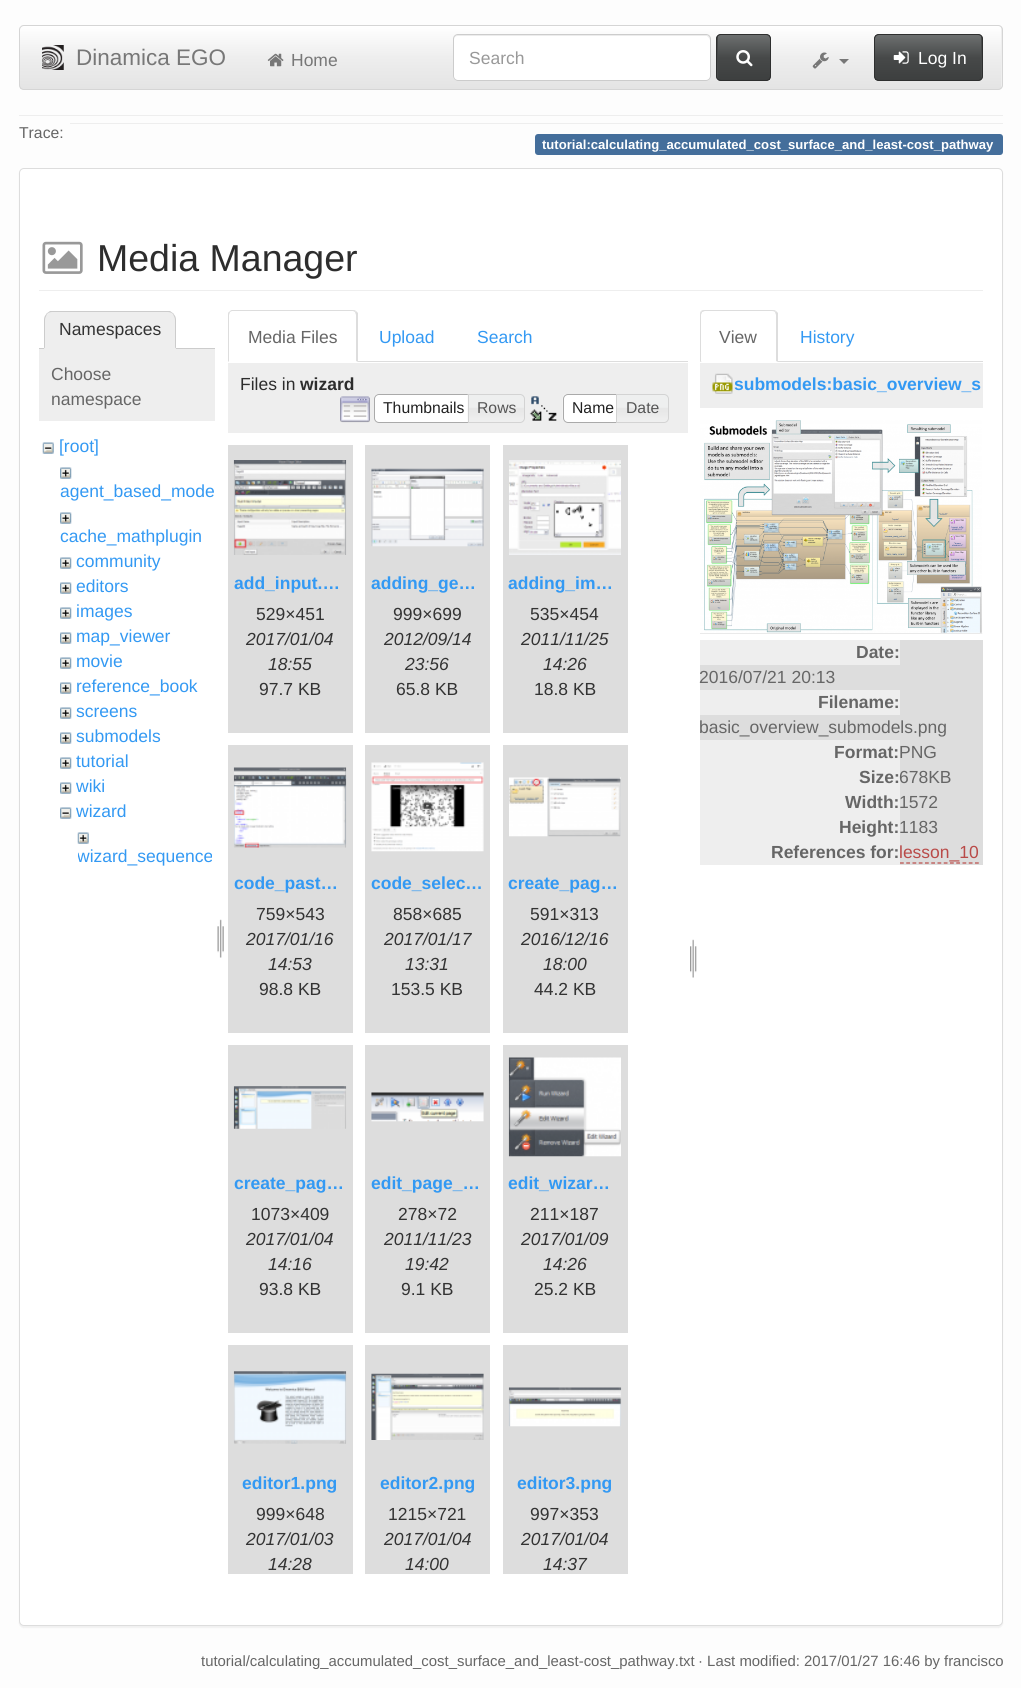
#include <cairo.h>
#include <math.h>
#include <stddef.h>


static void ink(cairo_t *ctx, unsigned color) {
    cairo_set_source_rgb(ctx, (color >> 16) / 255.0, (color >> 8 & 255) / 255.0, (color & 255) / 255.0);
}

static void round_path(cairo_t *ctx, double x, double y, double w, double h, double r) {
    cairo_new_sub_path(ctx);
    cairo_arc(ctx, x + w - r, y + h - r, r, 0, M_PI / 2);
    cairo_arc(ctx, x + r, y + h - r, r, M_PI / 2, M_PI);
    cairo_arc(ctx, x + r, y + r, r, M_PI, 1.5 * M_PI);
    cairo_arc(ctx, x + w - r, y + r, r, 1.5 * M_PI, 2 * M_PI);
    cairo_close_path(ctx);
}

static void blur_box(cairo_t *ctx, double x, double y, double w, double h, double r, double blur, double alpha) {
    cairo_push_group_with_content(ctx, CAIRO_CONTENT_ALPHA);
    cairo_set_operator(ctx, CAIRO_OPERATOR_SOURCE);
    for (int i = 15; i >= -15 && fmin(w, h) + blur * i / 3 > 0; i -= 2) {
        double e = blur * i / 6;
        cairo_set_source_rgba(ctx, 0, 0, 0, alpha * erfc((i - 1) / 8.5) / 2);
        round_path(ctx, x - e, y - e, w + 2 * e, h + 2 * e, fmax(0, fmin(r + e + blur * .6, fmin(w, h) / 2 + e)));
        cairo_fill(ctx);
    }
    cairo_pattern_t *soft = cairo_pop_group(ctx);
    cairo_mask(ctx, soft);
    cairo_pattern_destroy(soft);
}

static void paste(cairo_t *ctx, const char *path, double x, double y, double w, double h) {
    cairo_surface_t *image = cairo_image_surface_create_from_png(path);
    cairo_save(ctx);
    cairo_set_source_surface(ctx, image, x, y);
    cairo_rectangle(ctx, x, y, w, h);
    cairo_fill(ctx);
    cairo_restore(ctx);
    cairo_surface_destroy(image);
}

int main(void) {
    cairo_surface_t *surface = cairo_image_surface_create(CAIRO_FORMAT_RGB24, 1021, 1688);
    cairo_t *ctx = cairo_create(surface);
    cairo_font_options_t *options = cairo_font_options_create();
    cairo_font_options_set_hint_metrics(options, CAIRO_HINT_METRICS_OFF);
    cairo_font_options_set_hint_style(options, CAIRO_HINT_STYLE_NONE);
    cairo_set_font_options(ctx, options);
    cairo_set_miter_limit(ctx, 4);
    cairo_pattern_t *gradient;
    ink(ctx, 0xFDFDFD);
    cairo_paint(ctx);
    ink(ctx, 0xEEEEEE);
    round_path(ctx, 19, 25, 984, 65, 5);
    cairo_fill(ctx);
    gradient = cairo_pattern_create_linear(511, 26, 511, 89);
    cairo_pattern_add_color_stop_rgba(gradient, 0, 1, 1, 1, 1);
    cairo_pattern_add_color_stop_rgba(gradient, 0.5, 0.933, 0.933, 0.933, 1);
    cairo_pattern_add_color_stop_rgba(gradient, 1, 0.894, 0.894, 0.894, 1);
    cairo_set_source(ctx, gradient);
    cairo_pattern_destroy(gradient);
    cairo_rectangle(ctx, 20, 26, 981, 63);
    cairo_fill(ctx);
    round_path(ctx, 19.5, 25.5, 983, 64, 4.5);
    ink(ctx, 0xD5D5D5);
    cairo_set_line_width(ctx, 1);
    cairo_stroke(ctx);
    paste(ctx, "media/1.png", 42, 45, 22, 25);
    cairo_select_font_face(ctx, "Liberation Sans", CAIRO_FONT_SLANT_NORMAL, CAIRO_FONT_WEIGHT_NORMAL);
    cairo_set_font_size(ctx, 22.5);
    ink(ctx, 0x777777);
    cairo_move_to(ctx, 76, 65);
    cairo_show_text(ctx, "Dinamica EGO");
    paste(ctx, "media/2.png", 267, 53, 17, 14);
    cairo_set_font_size(ctx, 17.5);
    cairo_move_to(ctx, 291, 66);
    cairo_show_text(ctx, "Home");
    ink(ctx, 0xFFFFFF);
    round_path(ctx, 453, 34, 258, 47, 5);
    cairo_fill(ctx);
    ink(ctx, 0xECECEC);
    cairo_new_path(ctx);
    cairo_move_to(ctx, 458, 36);
    cairo_line_to(ctx, 707, 36);
    cairo_line_to(ctx, 709, 38);
    cairo_line_to(ctx, 710, 40);
    cairo_line_to(ctx, 710, 39);
    cairo_curve_to(ctx, 710, 37, 708, 35, 706, 35);
    cairo_line_to(ctx, 458, 35);
    cairo_curve_to(ctx, 456, 35, 454, 37, 454, 39);
    cairo_line_to(ctx, 454, 40);
    cairo_curve_to(ctx, 454, 38, 455, 36, 458, 36);
    cairo_close_path(ctx);
    cairo_fill(ctx);
    round_path(ctx, 453.5, 34.5, 257, 46, 4.5);
    ink(ctx, 0xCCCCCC);
    cairo_stroke(ctx);
    ink(ctx, 0x999999);
    cairo_move_to(ctx, 469, 64);
    cairo_show_text(ctx, "Search");
    ink(ctx, 0x474949);
    round_path(ctx, 716, 34, 55, 47, 5);
    cairo_fill(ctx);
    gradient = cairo_pattern_create_linear(744, 35, 744, 80);
    cairo_pattern_add_color_stop_rgba(gradient, 0, 0.427, 0.439, 0.439, 1);
    cairo_pattern_add_color_stop_rgba(gradient, 0.5, 0.278, 0.286, 0.286, 1);
    cairo_pattern_add_color_stop_rgba(gradient, 1, 0.239, 0.247, 0.247, 1);
    cairo_set_source(ctx, gradient);
    cairo_pattern_destroy(gradient);
    cairo_rectangle(ctx, 718, 35, 52, 45);
    cairo_fill(ctx);
    round_path(ctx, 716.5, 34.5, 54, 46, 4.5);
    ink(ctx, 0x2E2F2F);
    cairo_stroke(ctx);
    paste(ctx, "media/3.png", 736, 50, 17, 17);
    paste(ctx, "media/4.png", 812, 52, 17, 17);
    ink(ctx, 0x777777);
    cairo_new_path(ctx);
    cairo_move_to(ctx, 839, 59);
    cairo_line_to(ctx, 849, 59);
    cairo_line_to(ctx, 844, 64);
    cairo_close_path(ctx);
    cairo_fill(ctx);
    ink(ctx, 0x474949);
    round_path(ctx, 874, 34, 109, 47, 5);
    cairo_fill(ctx);
    gradient = cairo_pattern_create_linear(928, 35, 928, 80);
    cairo_pattern_add_color_stop_rgba(gradient, 0, 0.427, 0.439, 0.439, 1);
    cairo_pattern_add_color_stop_rgba(gradient, 0.5, 0.278, 0.286, 0.286, 1);
    cairo_pattern_add_color_stop_rgba(gradient, 1, 0.239, 0.247, 0.247, 1);
    cairo_set_source(ctx, gradient);
    cairo_pattern_destroy(gradient);
    cairo_rectangle(ctx, 875, 35, 106, 45);
    cairo_fill(ctx);
    round_path(ctx, 874.5, 34.5, 108, 46, 4.5);
    ink(ctx, 0x2E2F2F);
    cairo_stroke(ctx);
    paste(ctx, "media/5.png", 893, 51, 16, 13);
    ink(ctx, 0xFFFFFF);
    cairo_move_to(ctx, 918, 64);
    cairo_show_text(ctx, "Log In");
    ink(ctx, 0xEEEEEE);
    cairo_rectangle(ctx, 19, 115, 984, 1);
    cairo_fill(ctx);
    cairo_rectangle(ctx, 70, 123, 933, 1);
    cairo_fill(ctx);
    cairo_set_font_size(ctx, 15.75);
    ink(ctx, 0x666666);
    cairo_move_to(ctx, 19, 138);
    cairo_show_text(ctx, "Trace:");
    ink(ctx, 0x446E9B);
    round_path(ctx, 535, 134, 468, 21, 3);
    cairo_fill(ctx);
    cairo_select_font_face(ctx, "Liberation Sans", CAIRO_FONT_SLANT_NORMAL, CAIRO_FONT_WEIGHT_BOLD);
    cairo_set_font_size(ctx, 13.1);
    ink(ctx, 0xFFFFFF);
    cairo_move_to(ctx, 542, 149);
    cairo_show_text(ctx, "tutorial:calculating_accumulated_cost_surface_and_least-cost_pathway");
    ink(ctx, 0x000000);
    blur_box(ctx, 19, 169, 984, 1459, 5, 0.5, 0.05);
    ink(ctx, 0xFFFFFF);
    round_path(ctx, 19.5, 168.5, 983, 1457, 4.5);
    cairo_fill_preserve(ctx);
    ink(ctx, 0xDDDDDD);
    cairo_stroke(ctx);
    ink(ctx, 0xEEEEEE);
    cairo_rectangle(ctx, 39, 290, 944, 1);
    cairo_fill(ctx);
    paste(ctx, "media/6.png", 42, 241, 41, 33);
    cairo_select_font_face(ctx, "Liberation Sans", CAIRO_FONT_SLANT_NORMAL, CAIRO_FONT_WEIGHT_NORMAL);
    cairo_set_font_size(ctx, 37.5);
    ink(ctx, 0x2D2D2D);
    cairo_move_to(ctx, 97, 271);
    cairo_show_text(ctx, "Media Manager");
    ink(ctx, 0xCCCCCC);
    cairo_rectangle(ctx, 39, 348, 176, 1);
    cairo_fill(ctx);
    ink(ctx, 0xEEEEEE);
    cairo_new_path(ctx);
    cairo_move_to(ctx, 53, 311);
    cairo_line_to(ctx, 167, 311);
    cairo_curve_to(ctx, 172, 311, 176, 315, 176, 320);
    cairo_line_to(ctx, 176, 349);
    cairo_line_to(ctx, 44, 349);
    cairo_line_to(ctx, 44, 320);
    cairo_curve_to(ctx, 44, 315, 48, 311, 53, 311);
    cairo_close_path(ctx);
    cairo_fill(ctx);
    ink(ctx, 0xCCCCCC);
    cairo_new_path(ctx);
    cairo_move_to(ctx, 52, 312);
    cairo_curve_to(ctx, 50, 312, 48, 313, 47, 314);
    cairo_line_to(ctx, 46, 314);
    cairo_line_to(ctx, 50, 311);
    cairo_line_to(ctx, 170, 311);
    cairo_line_to(ctx, 174, 314);
    cairo_line_to(ctx, 173, 314);
    cairo_curve_to(ctx, 172, 313, 170, 312, 168, 312);
    cairo_close_path(ctx);
    cairo_fill(ctx);
    cairo_new_path(ctx);
    cairo_move_to(ctx, 173.5, 314);
    cairo_curve_to(ctx, 175, 315.5, 176, 317.5, 176, 320);
    cairo_line_to(ctx, 176, 348.5);
    cairo_line_to(ctx, 175, 347.5);
    cairo_line_to(ctx, 175, 320);
    cairo_curve_to(ctx, 175, 318, 174, 316, 173, 314.5);
    cairo_close_path(ctx);
    cairo_fill(ctx);
    cairo_new_path(ctx);
    cairo_move_to(ctx, 44, 348.5);
    cairo_line_to(ctx, 44, 320);
    cairo_curve_to(ctx, 44, 317.5, 45, 315.5, 46.5, 314);
    cairo_line_to(ctx, 47, 314.5);
    cairo_curve_to(ctx, 46, 316, 45, 318, 45, 320);
    cairo_line_to(ctx, 45, 347.5);
    cairo_close_path(ctx);
    cairo_fill(ctx);
    cairo_set_font_size(ctx, 17.5);
    ink(ctx, 0x333333);
    cairo_move_to(ctx, 59, 335);
    cairo_show_text(ctx, "Namespaces");
    ink(ctx, 0xEEEEEE);
    cairo_rectangle(ctx, 39, 349, 176, 72);
    cairo_fill(ctx);
    ink(ctx, 0x666666);
    cairo_move_to(ctx, 51, 380);
    cairo_show_text(ctx, "Choose");
    cairo_move_to(ctx, 51, 405);
    cairo_show_text(ctx, "namespace");
    paste(ctx, "media/7.png", 42, 442, 12, 12);
    ink(ctx, 0x3399F3);
    cairo_move_to(ctx, 59, 452);
    cairo_show_text(ctx, "[root]");
    paste(ctx, "media/8.png", 60, 467, 12, 12);
    cairo_move_to(ctx, 60, 497);
    cairo_show_text(ctx, "agent_based_mode");
    paste(ctx, "media/9.png", 60, 512, 12, 12);
    cairo_move_to(ctx, 60, 542);
    cairo_show_text(ctx, "cache_mathplugin");
    paste(ctx, "media/8.png", 60, 557, 12, 12);
    cairo_move_to(ctx, 76, 567);
    cairo_show_text(ctx, "community");
    paste(ctx, "media/10.png", 60, 582, 12, 12);
    cairo_move_to(ctx, 76, 592);
    cairo_show_text(ctx, "editors");
    paste(ctx, "media/8.png", 60, 607, 12, 12);
    cairo_move_to(ctx, 76, 617);
    cairo_show_text(ctx, "images");
    paste(ctx, "media/8.png", 60, 632, 12, 12);
    cairo_move_to(ctx, 76, 642);
    cairo_show_text(ctx, "map_viewer");
    paste(ctx, "media/8.png", 60, 657, 12, 12);
    cairo_move_to(ctx, 76, 667);
    cairo_show_text(ctx, "movie");
    paste(ctx, "media/8.png", 60, 682, 12, 12);
    cairo_move_to(ctx, 76, 692);
    cairo_show_text(ctx, "reference_book");
    paste(ctx, "media/8.png", 60, 707, 12, 12);
    cairo_move_to(ctx, 76, 717);
    cairo_show_text(ctx, "screens");
    paste(ctx, "media/8.png", 60, 732, 12, 12);
    cairo_move_to(ctx, 76, 742);
    cairo_show_text(ctx, "submodels");
    paste(ctx, "media/8.png", 60, 757, 12, 12);
    cairo_move_to(ctx, 76, 767);
    cairo_show_text(ctx, "tutorial");
    paste(ctx, "media/8.png", 60, 782, 12, 12);
    cairo_move_to(ctx, 76, 792);
    cairo_show_text(ctx, "wiki");
    paste(ctx, "media/11.png", 60, 807, 12, 12);
    cairo_move_to(ctx, 76, 817);
    cairo_show_text(ctx, "wizard");
    paste(ctx, "media/12.png", 77, 832, 12, 12);
    cairo_save(ctx);
    cairo_rectangle(ctx, 78, 824, 137, 45);
    cairo_clip(ctx);
    cairo_move_to(ctx, 77, 862);
    cairo_show_text(ctx, "wizard_sequence");
    cairo_restore(ctx);
    paste(ctx, "media/13.png", 217, 919, 7, 39);
    ink(ctx, 0xDDDDDD);
    cairo_rectangle(ctx, 358, 361, 330, 1);
    cairo_fill(ctx);
    cairo_new_path(ctx);
    cairo_move_to(ctx, 232, 310);
    cairo_curve_to(ctx, 231, 310, 230, 311, 229, 312);
    cairo_line_to(ctx, 230, 312);
    cairo_line_to(ctx, 232, 311);
    cairo_line_to(ctx, 353, 311);
    cairo_line_to(ctx, 355, 312);
    cairo_line_to(ctx, 356, 311);
    cairo_curve_to(ctx, 355, 310, 354, 310, 352, 310);
    cairo_close_path(ctx);
    cairo_fill(ctx);
    cairo_new_path(ctx);
    cairo_move_to(ctx, 358, 362);
    cairo_line_to(ctx, 356, 361);
    cairo_line_to(ctx, 356, 315);
    cairo_line_to(ctx, 355, 312);
    cairo_line_to(ctx, 356, 311);
    cairo_line_to(ctx, 358, 313);
    cairo_close_path(ctx);
    cairo_fill(ctx);
    cairo_new_path(ctx);
    cairo_move_to(ctx, 229, 312);
    cairo_curve_to(ctx, 228, 312, 228, 314, 228, 315);
    cairo_line_to(ctx, 228, 362);
    cairo_line_to(ctx, 229, 361);
    cairo_line_to(ctx, 229, 315);
    cairo_line_to(ctx, 230, 312);
    cairo_close_path(ctx);
    cairo_fill(ctx);
    ink(ctx, 0x666666);
    cairo_move_to(ctx, 248, 343);
    cairo_show_text(ctx, "Media Files");
    ink(ctx, 0x3399F3);
    cairo_move_to(ctx, 379, 343);
    cairo_show_text(ctx, "Upload");
    cairo_move_to(ctx, 477, 343);
    cairo_show_text(ctx, "Search");
    ink(ctx, 0xEEEEEE);
    cairo_rectangle(ctx, 228, 363, 460, 70);
    cairo_fill(ctx);
    ink(ctx, 0x2D2D2D);
    cairo_move_to(ctx, 240, 390);
    cairo_show_text(ctx, "Files in");
    cairo_select_font_face(ctx, "Liberation Sans", CAIRO_FONT_SLANT_NORMAL, CAIRO_FONT_WEIGHT_BOLD);
    cairo_move_to(ctx, 300, 390);
    cairo_show_text(ctx, "wizard");
    paste(ctx, "media/14.png", 340, 396, 30, 27);
    ink(ctx, 0xFFFFFF);
    cairo_new_path(ctx);
    cairo_move_to(ctx, 379, 394);
    cairo_line_to(ctx, 474, 394);
    cairo_line_to(ctx, 474, 423);
    cairo_line_to(ctx, 379, 423);
    cairo_curve_to(ctx, 376, 423, 374, 421, 374, 418);
    cairo_line_to(ctx, 374, 399);
    cairo_curve_to(ctx, 374, 396, 376, 394, 379, 394);
    cairo_close_path(ctx);
    cairo_fill(ctx);
    paste(ctx, "media/15.png", 374, 394, 4, 4);
    cairo_new_path(ctx);
    cairo_move_to(ctx, 379, 394.5);
    cairo_line_to(ctx, 473.5, 394.5);
    cairo_line_to(ctx, 473.5, 422.5);
    cairo_line_to(ctx, 379, 422.5);
    cairo_curve_to(ctx, 376.5, 422.5, 374.5, 420.5, 374.5, 418);
    cairo_line_to(ctx, 374.5, 399);
    cairo_curve_to(ctx, 374.5, 396.5, 376.5, 394.5, 379, 394.5);
    cairo_close_path(ctx);
    ink(ctx, 0xAAAAAA);
    cairo_stroke(ctx);
    cairo_select_font_face(ctx, "Liberation Sans", CAIRO_FONT_SLANT_NORMAL, CAIRO_FONT_WEIGHT_NORMAL);
    cairo_set_font_size(ctx, 15.75);
    ink(ctx, 0x212121);
    cairo_move_to(ctx, 383, 413);
    cairo_show_text(ctx, "Thumbnails");
    paste(ctx, "media/16.png", 467, 394, 58, 29);
    cairo_new_path(ctx);
    cairo_move_to(ctx, 468.5, 394.5);
    cairo_line_to(ctx, 520, 394.5);
    cairo_curve_to(ctx, 522.5, 394.5, 524.5, 396.5, 524.5, 399);
    cairo_line_to(ctx, 524.5, 418);
    cairo_curve_to(ctx, 524.5, 420.5, 522.5, 422.5, 520, 422.5);
    cairo_line_to(ctx, 468.5, 422.5);
    cairo_close_path(ctx);
    ink(ctx, 0xD3D3D3);
    cairo_stroke(ctx);
    ink(ctx, 0x555555);
    cairo_move_to(ctx, 477, 413);
    cairo_show_text(ctx, "Rows");
    paste(ctx, "media/17.png", 529, 396, 28, 25);
    ink(ctx, 0xFFFFFF);
    cairo_new_path(ctx);
    cairo_move_to(ctx, 568, 394);
    cairo_line_to(ctx, 623, 394);
    cairo_line_to(ctx, 623, 423);
    cairo_line_to(ctx, 568, 423);
    cairo_curve_to(ctx, 565, 423, 563, 421, 563, 418);
    cairo_line_to(ctx, 563, 399);
    cairo_curve_to(ctx, 563, 396, 565, 394, 568, 394);
    cairo_close_path(ctx);
    cairo_fill(ctx);
    paste(ctx, "media/18.png", 562, 394, 5, 27);
    cairo_new_path(ctx);
    cairo_move_to(ctx, 568, 394.5);
    cairo_line_to(ctx, 622.5, 394.5);
    cairo_line_to(ctx, 622.5, 422.5);
    cairo_line_to(ctx, 568, 422.5);
    cairo_curve_to(ctx, 565.5, 422.5, 563.5, 420.5, 563.5, 418);
    cairo_line_to(ctx, 563.5, 399);
    cairo_curve_to(ctx, 563.5, 396.5, 565.5, 394.5, 568, 394.5);
    cairo_close_path(ctx);
    ink(ctx, 0xAAAAAA);
    cairo_stroke(ctx);
    ink(ctx, 0x212121);
    cairo_move_to(ctx, 572, 413);
    cairo_show_text(ctx, "Name");
    paste(ctx, "media/19.png", 617, 394, 52, 28);
    cairo_new_path(ctx);
    cairo_move_to(ctx, 616.5, 394.5);
    cairo_line_to(ctx, 664, 394.5);
    cairo_curve_to(ctx, 666.5, 394.5, 668.5, 396.5, 668.5, 399);
    cairo_line_to(ctx, 668.5, 418);
    cairo_curve_to(ctx, 668.5, 420.5, 666.5, 422.5, 664, 422.5);
    cairo_line_to(ctx, 616.5, 422.5);
    cairo_close_path(ctx);
    ink(ctx, 0xD3D3D3);
    cairo_stroke(ctx);
    ink(ctx, 0x555555);
    cairo_move_to(ctx, 626, 413);
    cairo_show_text(ctx, "Date");
    ink(ctx, 0xDDDDDD);
    cairo_rectangle(ctx, 228, 445, 125, 288);
    cairo_fill(ctx);
    paste(ctx, "media/20.png", 233, 460, 114, 95);
    cairo_select_font_face(ctx, "Liberation Sans", CAIRO_FONT_SLANT_NORMAL, CAIRO_FONT_WEIGHT_BOLD);
    cairo_set_font_size(ctx, 17.5);
    ink(ctx, 0x3399F3);
    cairo_move_to(ctx, 234, 589);
    cairo_show_text(ctx, "add_input.…");
    cairo_select_font_face(ctx, "Liberation Sans", CAIRO_FONT_SLANT_NORMAL, CAIRO_FONT_WEIGHT_NORMAL);
    ink(ctx, 0x333333);
    cairo_move_to(ctx, 256, 620);
    cairo_show_text(ctx, "529×451");
    cairo_select_font_face(ctx, "Liberation Sans", CAIRO_FONT_SLANT_ITALIC, CAIRO_FONT_WEIGHT_NORMAL);
    cairo_move_to(ctx, 246, 645);
    cairo_show_text(ctx, "2017/01/04");
    cairo_move_to(ctx, 268, 670);
    cairo_show_text(ctx, "18:55");
    cairo_select_font_face(ctx, "Liberation Sans", CAIRO_FONT_SLANT_NORMAL, CAIRO_FONT_WEIGHT_NORMAL);
    cairo_move_to(ctx, 259, 695);
    cairo_show_text(ctx, "97.7 KB");
    ink(ctx, 0xDDDDDD);
    cairo_rectangle(ctx, 365, 445, 125, 288);
    cairo_fill(ctx);
    paste(ctx, "media/21.png", 371, 468, 113, 79);
    cairo_select_font_face(ctx, "Liberation Sans", CAIRO_FONT_SLANT_NORMAL, CAIRO_FONT_WEIGHT_BOLD);
    ink(ctx, 0x3399F3);
    cairo_move_to(ctx, 371, 589);
    cairo_show_text(ctx, "adding_ge…");
    cairo_select_font_face(ctx, "Liberation Sans", CAIRO_FONT_SLANT_NORMAL, CAIRO_FONT_WEIGHT_NORMAL);
    ink(ctx, 0x333333);
    cairo_move_to(ctx, 393, 620);
    cairo_show_text(ctx, "999×699");
    cairo_select_font_face(ctx, "Liberation Sans", CAIRO_FONT_SLANT_ITALIC, CAIRO_FONT_WEIGHT_NORMAL);
    cairo_move_to(ctx, 384, 645);
    cairo_show_text(ctx, "2012/09/14");
    cairo_move_to(ctx, 405, 670);
    cairo_show_text(ctx, "23:56");
    cairo_select_font_face(ctx, "Liberation Sans", CAIRO_FONT_SLANT_NORMAL, CAIRO_FONT_WEIGHT_NORMAL);
    cairo_move_to(ctx, 396, 695);
    cairo_show_text(ctx, "65.8 KB");
    ink(ctx, 0xDDDDDD);
    cairo_rectangle(ctx, 503, 445, 125, 288);
    cairo_fill(ctx);
    paste(ctx, "media/22.png", 509, 460, 112, 95);
    cairo_select_font_face(ctx, "Liberation Sans", CAIRO_FONT_SLANT_NORMAL, CAIRO_FONT_WEIGHT_BOLD);
    ink(ctx, 0x3399F3);
    cairo_move_to(ctx, 508, 589);
    cairo_show_text(ctx, "adding_im…");
    cairo_select_font_face(ctx, "Liberation Sans", CAIRO_FONT_SLANT_NORMAL, CAIRO_FONT_WEIGHT_NORMAL);
    ink(ctx, 0x333333);
    cairo_move_to(ctx, 530, 620);
    cairo_show_text(ctx, "535×454");
    cairo_select_font_face(ctx, "Liberation Sans", CAIRO_FONT_SLANT_ITALIC, CAIRO_FONT_WEIGHT_NORMAL);
    cairo_move_to(ctx, 521, 645);
    cairo_show_text(ctx, "2011/11/25");
    cairo_move_to(ctx, 543, 670);
    cairo_show_text(ctx, "14:26");
    cairo_select_font_face(ctx, "Liberation Sans", CAIRO_FONT_SLANT_NORMAL, CAIRO_FONT_WEIGHT_NORMAL);
    cairo_move_to(ctx, 534, 695);
    cairo_show_text(ctx, "18.8 KB");
    ink(ctx, 0xDDDDDD);
    cairo_rectangle(ctx, 228, 745, 125, 288);
    cairo_fill(ctx);
    paste(ctx, "media/23.png", 233, 767, 114, 81);
    cairo_select_font_face(ctx, "Liberation Sans", CAIRO_FONT_SLANT_NORMAL, CAIRO_FONT_WEIGHT_BOLD);
    ink(ctx, 0x3399F3);
    cairo_move_to(ctx, 234, 889);
    cairo_show_text(ctx, "code_past…");
    cairo_select_font_face(ctx, "Liberation Sans", CAIRO_FONT_SLANT_NORMAL, CAIRO_FONT_WEIGHT_NORMAL);
    ink(ctx, 0x333333);
    cairo_move_to(ctx, 256, 920);
    cairo_show_text(ctx, "759×543");
    cairo_select_font_face(ctx, "Liberation Sans", CAIRO_FONT_SLANT_ITALIC, CAIRO_FONT_WEIGHT_NORMAL);
    cairo_move_to(ctx, 246, 945);
    cairo_show_text(ctx, "2017/01/16");
    cairo_move_to(ctx, 268, 970);
    cairo_show_text(ctx, "14:53");
    cairo_select_font_face(ctx, "Liberation Sans", CAIRO_FONT_SLANT_NORMAL, CAIRO_FONT_WEIGHT_NORMAL);
    cairo_move_to(ctx, 259, 995);
    cairo_show_text(ctx, "98.8 KB");
    ink(ctx, 0xDDDDDD);
    cairo_rectangle(ctx, 365, 745, 125, 288);
    cairo_fill(ctx);
    paste(ctx, "media/24.png", 371, 762, 113, 90);
    cairo_select_font_face(ctx, "Liberation Sans", CAIRO_FONT_SLANT_NORMAL, CAIRO_FONT_WEIGHT_BOLD);
    ink(ctx, 0x3399F3);
    cairo_move_to(ctx, 371, 889);
    cairo_show_text(ctx, "code_selec…");
    cairo_select_font_face(ctx, "Liberation Sans", CAIRO_FONT_SLANT_NORMAL, CAIRO_FONT_WEIGHT_NORMAL);
    ink(ctx, 0x333333);
    cairo_move_to(ctx, 393, 920);
    cairo_show_text(ctx, "858×685");
    cairo_select_font_face(ctx, "Liberation Sans", CAIRO_FONT_SLANT_ITALIC, CAIRO_FONT_WEIGHT_NORMAL);
    cairo_move_to(ctx, 384, 945);
    cairo_show_text(ctx, "2017/01/17");
    cairo_move_to(ctx, 405, 970);
    cairo_show_text(ctx, "13:31");
    cairo_select_font_face(ctx, "Liberation Sans", CAIRO_FONT_SLANT_NORMAL, CAIRO_FONT_WEIGHT_NORMAL);
    cairo_move_to(ctx, 391, 995);
    cairo_show_text(ctx, "153.5 KB");
    ink(ctx, 0xDDDDDD);
    cairo_rectangle(ctx, 503, 745, 125, 288);
    cairo_fill(ctx);
    paste(ctx, "media/25.png", 509, 777, 112, 60);
    cairo_select_font_face(ctx, "Liberation Sans", CAIRO_FONT_SLANT_NORMAL, CAIRO_FONT_WEIGHT_BOLD);
    ink(ctx, 0x3399F3);
    cairo_move_to(ctx, 508, 889);
    cairo_show_text(ctx, "create_pag…");
    cairo_select_font_face(ctx, "Liberation Sans", CAIRO_FONT_SLANT_NORMAL, CAIRO_FONT_WEIGHT_NORMAL);
    ink(ctx, 0x333333);
    cairo_move_to(ctx, 530, 920);
    cairo_show_text(ctx, "591×313");
    cairo_select_font_face(ctx, "Liberation Sans", CAIRO_FONT_SLANT_ITALIC, CAIRO_FONT_WEIGHT_NORMAL);
    cairo_move_to(ctx, 521, 945);
    cairo_show_text(ctx, "2016/12/16");
    cairo_move_to(ctx, 543, 970);
    cairo_show_text(ctx, "18:00");
    cairo_select_font_face(ctx, "Liberation Sans", CAIRO_FONT_SLANT_NORMAL, CAIRO_FONT_WEIGHT_NORMAL);
    cairo_move_to(ctx, 534, 995);
    cairo_show_text(ctx, "44.2 KB");
    ink(ctx, 0xDDDDDD);
    cairo_rectangle(ctx, 228, 1045, 125, 288);
    cairo_fill(ctx);
    paste(ctx, "media/26.png", 233, 1086, 114, 43);
    cairo_select_font_face(ctx, "Liberation Sans", CAIRO_FONT_SLANT_NORMAL, CAIRO_FONT_WEIGHT_BOLD);
    ink(ctx, 0x3399F3);
    cairo_move_to(ctx, 234, 1189);
    cairo_show_text(ctx, "create_pag…");
    cairo_select_font_face(ctx, "Liberation Sans", CAIRO_FONT_SLANT_NORMAL, CAIRO_FONT_WEIGHT_NORMAL);
    ink(ctx, 0x333333);
    cairo_move_to(ctx, 251, 1220);
    cairo_show_text(ctx, "1073×409");
    cairo_select_font_face(ctx, "Liberation Sans", CAIRO_FONT_SLANT_ITALIC, CAIRO_FONT_WEIGHT_NORMAL);
    cairo_move_to(ctx, 246, 1245);
    cairo_show_text(ctx, "2017/01/04");
    cairo_move_to(ctx, 268, 1270);
    cairo_show_text(ctx, "14:16");
    cairo_select_font_face(ctx, "Liberation Sans", CAIRO_FONT_SLANT_NORMAL, CAIRO_FONT_WEIGHT_NORMAL);
    cairo_move_to(ctx, 259, 1295);
    cairo_show_text(ctx, "93.8 KB");
    ink(ctx, 0xDDDDDD);
    cairo_rectangle(ctx, 365, 1045, 125, 288);
    cairo_fill(ctx);
    paste(ctx, "media/27.png", 371, 1092, 113, 30);
    cairo_select_font_face(ctx, "Liberation Sans", CAIRO_FONT_SLANT_NORMAL, CAIRO_FONT_WEIGHT_BOLD);
    ink(ctx, 0x3399F3);
    cairo_move_to(ctx, 371, 1189);
    cairo_show_text(ctx, "edit_page_…");
    cairo_select_font_face(ctx, "Liberation Sans", CAIRO_FONT_SLANT_NORMAL, CAIRO_FONT_WEIGHT_NORMAL);
    ink(ctx, 0x333333);
    cairo_move_to(ctx, 398, 1220);
    cairo_show_text(ctx, "278×72");
    cairo_select_font_face(ctx, "Liberation Sans", CAIRO_FONT_SLANT_ITALIC, CAIRO_FONT_WEIGHT_NORMAL);
    cairo_move_to(ctx, 384, 1245);
    cairo_show_text(ctx, "2011/11/23");
    cairo_move_to(ctx, 405, 1270);
    cairo_show_text(ctx, "19:42");
    cairo_select_font_face(ctx, "Liberation Sans", CAIRO_FONT_SLANT_NORMAL, CAIRO_FONT_WEIGHT_NORMAL);
    cairo_move_to(ctx, 401, 1295);
    cairo_show_text(ctx, "9.1 KB");
    ink(ctx, 0xDDDDDD);
    cairo_rectangle(ctx, 503, 1045, 125, 288);
    cairo_fill(ctx);
    paste(ctx, "media/28.png", 508, 1057, 113, 100);
    cairo_select_font_face(ctx, "Liberation Sans", CAIRO_FONT_SLANT_NORMAL, CAIRO_FONT_WEIGHT_BOLD);
    ink(ctx, 0x3399F3);
    cairo_move_to(ctx, 508, 1189);
    cairo_show_text(ctx, "edit_wizar…");
    cairo_select_font_face(ctx, "Liberation Sans", CAIRO_FONT_SLANT_NORMAL, CAIRO_FONT_WEIGHT_NORMAL);
    ink(ctx, 0x333333);
    cairo_move_to(ctx, 530, 1220);
    cairo_show_text(ctx, "211×187");
    cairo_select_font_face(ctx, "Liberation Sans", CAIRO_FONT_SLANT_ITALIC, CAIRO_FONT_WEIGHT_NORMAL);
    cairo_move_to(ctx, 521, 1245);
    cairo_show_text(ctx, "2017/01/09");
    cairo_move_to(ctx, 543, 1270);
    cairo_show_text(ctx, "14:26");
    cairo_select_font_face(ctx, "Liberation Sans", CAIRO_FONT_SLANT_NORMAL, CAIRO_FONT_WEIGHT_NORMAL);
    cairo_move_to(ctx, 534, 1295);
    cairo_show_text(ctx, "25.2 KB");
    ink(ctx, 0xDDDDDD);
    cairo_rectangle(ctx, 228, 1345, 125, 229);
    cairo_fill(ctx);
    paste(ctx, "media/29.png", 233, 1371, 114, 73);
    cairo_select_font_face(ctx, "Liberation Sans", CAIRO_FONT_SLANT_NORMAL, CAIRO_FONT_WEIGHT_BOLD);
    ink(ctx, 0x3399F3);
    cairo_move_to(ctx, 242, 1489);
    cairo_show_text(ctx, "editor1.png");
    cairo_select_font_face(ctx, "Liberation Sans", CAIRO_FONT_SLANT_NORMAL, CAIRO_FONT_WEIGHT_NORMAL);
    ink(ctx, 0x333333);
    cairo_move_to(ctx, 256, 1520);
    cairo_show_text(ctx, "999×648");
    cairo_select_font_face(ctx, "Liberation Sans", CAIRO_FONT_SLANT_ITALIC, CAIRO_FONT_WEIGHT_NORMAL);
    cairo_move_to(ctx, 246, 1545);
    cairo_show_text(ctx, "2017/01/03");
    cairo_move_to(ctx, 268, 1570);
    cairo_show_text(ctx, "14:28");
    ink(ctx, 0xDDDDDD);
    cairo_rectangle(ctx, 365, 1345, 125, 229);
    cairo_fill(ctx);
    paste(ctx, "media/30.png", 371, 1373, 113, 67);
    cairo_select_font_face(ctx, "Liberation Sans", CAIRO_FONT_SLANT_NORMAL, CAIRO_FONT_WEIGHT_BOLD);
    ink(ctx, 0x3399F3);
    cairo_move_to(ctx, 380, 1489);
    cairo_show_text(ctx, "editor2.png");
    cairo_select_font_face(ctx, "Liberation Sans", CAIRO_FONT_SLANT_NORMAL, CAIRO_FONT_WEIGHT_NORMAL);
    ink(ctx, 0x333333);
    cairo_move_to(ctx, 388, 1520);
    cairo_show_text(ctx, "1215×721");
    cairo_select_font_face(ctx, "Liberation Sans", CAIRO_FONT_SLANT_ITALIC, CAIRO_FONT_WEIGHT_NORMAL);
    cairo_move_to(ctx, 384, 1545);
    cairo_show_text(ctx, "2017/01/04");
    cairo_move_to(ctx, 405, 1570);
    cairo_show_text(ctx, "14:00");
    ink(ctx, 0xDDDDDD);
    cairo_rectangle(ctx, 503, 1345, 125, 229);
    cairo_fill(ctx);
    paste(ctx, "media/31.png", 508, 1387, 114, 40);
    cairo_select_font_face(ctx, "Liberation Sans", CAIRO_FONT_SLANT_NORMAL, CAIRO_FONT_WEIGHT_BOLD);
    ink(ctx, 0x3399F3);
    cairo_move_to(ctx, 517, 1489);
    cairo_show_text(ctx, "editor3.png");
    cairo_select_font_face(ctx, "Liberation Sans", CAIRO_FONT_SLANT_NORMAL, CAIRO_FONT_WEIGHT_NORMAL);
    ink(ctx, 0x333333);
    cairo_move_to(ctx, 530, 1520);
    cairo_show_text(ctx, "997×353");
    cairo_select_font_face(ctx, "Liberation Sans", CAIRO_FONT_SLANT_ITALIC, CAIRO_FONT_WEIGHT_NORMAL);
    cairo_move_to(ctx, 521, 1545);
    cairo_show_text(ctx, "2017/01/04");
    cairo_move_to(ctx, 543, 1570);
    cairo_show_text(ctx, "14:37");
    paste(ctx, "media/32.png", 690, 939, 7, 39);
    ink(ctx, 0xDDDDDD);
    cairo_rectangle(ctx, 778, 361, 205, 1);
    cairo_fill(ctx);
    cairo_new_path(ctx);
    cairo_move_to(ctx, 705, 310);
    cairo_curve_to(ctx, 704, 310, 702, 310, 701, 311);
    cairo_line_to(ctx, 702, 312);
    cairo_curve_to(ctx, 703, 312, 704, 311, 705, 311);
    cairo_line_to(ctx, 772, 311);
    cairo_curve_to(ctx, 774, 311, 775, 312, 775, 312);
    cairo_line_to(ctx, 776, 311);
    cairo_curve_to(ctx, 775, 310, 774, 310, 772, 310);
    cairo_close_path(ctx);
    cairo_fill(ctx);
    cairo_new_path(ctx);
    cairo_move_to(ctx, 778, 362);
    cairo_line_to(ctx, 776, 361);
    cairo_line_to(ctx, 776, 315);
    cairo_line_to(ctx, 775, 312);
    cairo_line_to(ctx, 776, 311);
    cairo_line_to(ctx, 778, 313);
    cairo_close_path(ctx);
    cairo_fill(ctx);
    cairo_new_path(ctx);
    cairo_move_to(ctx, 700, 315);
    cairo_line_to(ctx, 700, 362);
    cairo_line_to(ctx, 702, 361);
    cairo_line_to(ctx, 701, 361);
    cairo_line_to(ctx, 701, 315);
    cairo_curve_to(ctx, 701, 314, 702, 313, 702, 312);
    cairo_line_to(ctx, 701, 311);
    cairo_curve_to(ctx, 700, 312, 700, 314, 700, 315);
    cairo_close_path(ctx);
    cairo_fill(ctx);
    cairo_select_font_face(ctx, "Liberation Sans", CAIRO_FONT_SLANT_NORMAL, CAIRO_FONT_WEIGHT_NORMAL);
    ink(ctx, 0x666666);
    cairo_move_to(ctx, 719, 343);
    cairo_show_text(ctx, "View");
    ink(ctx, 0x3399F3);
    cairo_move_to(ctx, 800, 343);
    cairo_show_text(ctx, "History");
    ink(ctx, 0xEEEEEE);
    cairo_rectangle(ctx, 700, 363, 283, 45);
    cairo_fill(ctx);
    paste(ctx, "media/33.png", 712, 373, 21, 21);
    cairo_select_font_face(ctx, "Liberation Sans", CAIRO_FONT_SLANT_NORMAL, CAIRO_FONT_WEIGHT_BOLD);
    ink(ctx, 0x3399F3);
    cairo_move_to(ctx, 734, 390);
    cairo_show_text(ctx, "submodels:basic_overview_s");
    paste(ctx, "media/34.png", 700, 420, 283, 214);
    ink(ctx, 0xDDDDDD);
    cairo_rectangle(ctx, 700, 640, 283, 100);
    cairo_fill(ctx);
    ink(ctx, 0xEEEEEE);
    cairo_rectangle(ctx, 700, 640, 200, 25);
    cairo_fill(ctx);
    ink(ctx, 0x666666);
    cairo_move_to(ctx, 856, 658);
    cairo_show_text(ctx, "Date:");
    cairo_select_font_face(ctx, "Liberation Sans", CAIRO_FONT_SLANT_NORMAL, CAIRO_FONT_WEIGHT_NORMAL);
    cairo_move_to(ctx, 699, 683);
    cairo_show_text(ctx, "2016/07/21 20:13");
    ink(ctx, 0xEEEEEE);
    cairo_rectangle(ctx, 700, 690, 200, 25);
    cairo_fill(ctx);
    cairo_select_font_face(ctx, "Liberation Sans", CAIRO_FONT_SLANT_NORMAL, CAIRO_FONT_WEIGHT_BOLD);
    ink(ctx, 0x666666);
    cairo_move_to(ctx, 818, 708);
    cairo_show_text(ctx, "Filename:");
    cairo_select_font_face(ctx, "Liberation Sans", CAIRO_FONT_SLANT_NORMAL, CAIRO_FONT_WEIGHT_NORMAL);
    cairo_move_to(ctx, 699, 733);
    cairo_show_text(ctx, "basic_overview_submodels.png");
    ink(ctx, 0xEEEEEE);
    cairo_rectangle(ctx, 700, 740, 200, 125);
    cairo_fill(ctx);
    cairo_select_font_face(ctx, "Liberation Sans", CAIRO_FONT_SLANT_NORMAL, CAIRO_FONT_WEIGHT_BOLD);
    ink(ctx, 0x666666);
    cairo_move_to(ctx, 834, 758);
    cairo_show_text(ctx, "Format:");
    ink(ctx, 0xDDDDDD);
    cairo_rectangle(ctx, 900, 740, 83, 125);
    cairo_fill(ctx);
    cairo_select_font_face(ctx, "Liberation Sans", CAIRO_FONT_SLANT_NORMAL, CAIRO_FONT_WEIGHT_NORMAL);
    ink(ctx, 0x666666);
    cairo_move_to(ctx, 899, 758);
    cairo_show_text(ctx, "PNG");
    cairo_select_font_face(ctx, "Liberation Sans", CAIRO_FONT_SLANT_NORMAL, CAIRO_FONT_WEIGHT_BOLD);
    cairo_move_to(ctx, 859, 783);
    cairo_show_text(ctx, "Size:");
    cairo_select_font_face(ctx, "Liberation Sans", CAIRO_FONT_SLANT_NORMAL, CAIRO_FONT_WEIGHT_NORMAL);
    cairo_move_to(ctx, 899, 783);
    cairo_show_text(ctx, "678KB");
    cairo_select_font_face(ctx, "Liberation Sans", CAIRO_FONT_SLANT_NORMAL, CAIRO_FONT_WEIGHT_BOLD);
    cairo_move_to(ctx, 845, 808);
    cairo_show_text(ctx, "Width:");
    cairo_select_font_face(ctx, "Liberation Sans", CAIRO_FONT_SLANT_NORMAL, CAIRO_FONT_WEIGHT_NORMAL);
    cairo_move_to(ctx, 899, 808);
    cairo_show_text(ctx, "1572");
    cairo_select_font_face(ctx, "Liberation Sans", CAIRO_FONT_SLANT_NORMAL, CAIRO_FONT_WEIGHT_BOLD);
    cairo_move_to(ctx, 839, 833);
    cairo_show_text(ctx, "Height:");
    cairo_select_font_face(ctx, "Liberation Sans", CAIRO_FONT_SLANT_NORMAL, CAIRO_FONT_WEIGHT_NORMAL);
    cairo_move_to(ctx, 899, 833);
    cairo_show_text(ctx, "1183");
    cairo_select_font_face(ctx, "Liberation Sans", CAIRO_FONT_SLANT_NORMAL, CAIRO_FONT_WEIGHT_BOLD);
    cairo_move_to(ctx, 771, 858);
    cairo_show_text(ctx, "References for:");
    cairo_select_font_face(ctx, "Liberation Sans", CAIRO_FONT_SLANT_NORMAL, CAIRO_FONT_WEIGHT_NORMAL);
    ink(ctx, 0xB94A48);
    cairo_move_to(ctx, 899, 858);
    cairo_show_text(ctx, "lesson_10");
    cairo_new_path(ctx);
    cairo_move_to(ctx, 900, 863);
    cairo_line_to(ctx, 979, 863);
    cairo_set_line_width(ctx, 1.2);
    cairo_set_dash(ctx, (double[]){3.75, 2.5}, 2, 0);
    cairo_stroke(ctx);
    cairo_set_font_size(ctx, 14.9);
    ink(ctx, 0x666666);
    cairo_move_to(ctx, 201, 1666);
    cairo_show_text(ctx, "tutorial/calculating_accumulated_cost_surface_and_least-cost_pathway.txt");
    cairo_move_to(ctx, 698, 1666);
    cairo_show_text(ctx, "· Last modified: 2017/01/27 16:46 by francisco");
    cairo_surface_write_to_png(surface, "image.png");
    cairo_font_options_destroy(options);
    cairo_destroy(ctx);
    cairo_surface_destroy(surface);
    return 0;
}
